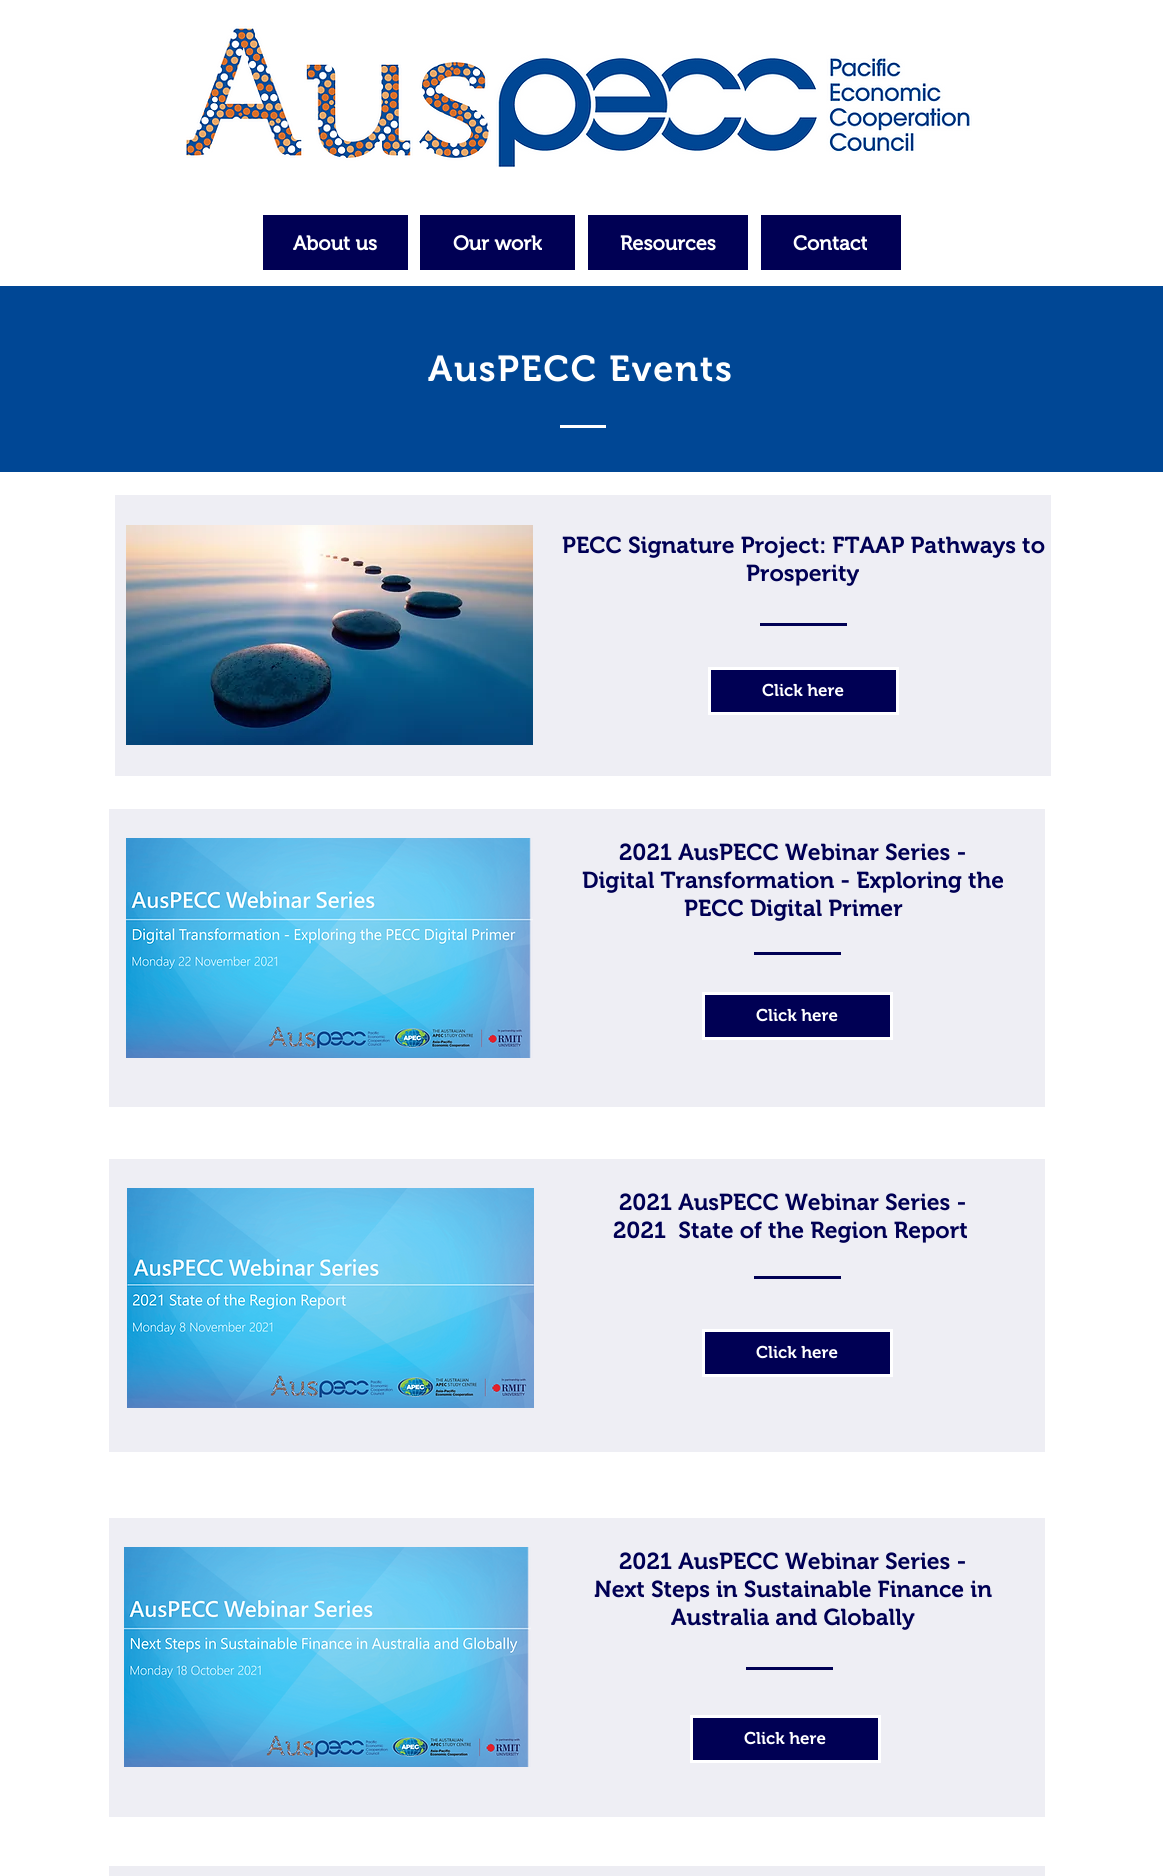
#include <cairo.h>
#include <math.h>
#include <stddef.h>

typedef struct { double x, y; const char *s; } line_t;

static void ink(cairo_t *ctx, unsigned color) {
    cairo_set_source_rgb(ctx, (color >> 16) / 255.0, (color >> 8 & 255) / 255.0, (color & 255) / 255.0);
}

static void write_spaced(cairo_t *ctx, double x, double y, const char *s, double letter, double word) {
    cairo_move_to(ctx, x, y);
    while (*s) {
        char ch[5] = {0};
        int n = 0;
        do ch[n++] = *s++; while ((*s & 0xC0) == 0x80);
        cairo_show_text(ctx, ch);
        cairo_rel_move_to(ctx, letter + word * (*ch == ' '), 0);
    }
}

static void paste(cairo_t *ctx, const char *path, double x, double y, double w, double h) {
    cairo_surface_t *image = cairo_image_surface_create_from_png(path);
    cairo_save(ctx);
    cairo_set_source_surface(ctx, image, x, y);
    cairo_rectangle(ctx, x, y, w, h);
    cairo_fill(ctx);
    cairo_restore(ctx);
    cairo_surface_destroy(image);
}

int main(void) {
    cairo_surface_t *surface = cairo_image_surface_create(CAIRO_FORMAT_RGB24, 1163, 1876);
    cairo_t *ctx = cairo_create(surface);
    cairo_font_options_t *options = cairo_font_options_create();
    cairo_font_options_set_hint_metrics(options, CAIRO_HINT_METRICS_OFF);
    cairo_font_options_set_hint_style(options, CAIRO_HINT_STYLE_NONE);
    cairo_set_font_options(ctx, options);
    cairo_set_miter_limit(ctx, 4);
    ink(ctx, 0xFFFFFF);
    cairo_paint(ctx);
    paste(ctx, "media/1.png", 186, 26, 786, 141);
    ink(ctx, 0x000054);
    cairo_rectangle(ctx, 263, 215, 145, 55);
    cairo_fill(ctx);
    cairo_select_font_face(ctx, "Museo", CAIRO_FONT_SLANT_NORMAL, CAIRO_FONT_WEIGHT_BOLD);
    cairo_set_font_size(ctx, 20);
    ink(ctx, 0xFFFFFF);
    cairo_move_to(ctx, 293, 250);
    cairo_show_text(ctx, "About us");
    ink(ctx, 0x000054);
    cairo_rectangle(ctx, 420, 215, 155, 55);
    cairo_fill(ctx);
    ink(ctx, 0xFFFFFF);
    cairo_move_to(ctx, 453, 250);
    cairo_show_text(ctx, "Our work");
    ink(ctx, 0x000054);
    cairo_rectangle(ctx, 588, 215, 160, 55);
    cairo_fill(ctx);
    ink(ctx, 0xFFFFFF);
    cairo_move_to(ctx, 620, 250);
    cairo_show_text(ctx, "Resources");
    ink(ctx, 0x000054);
    cairo_rectangle(ctx, 761, 215, 140, 55);
    cairo_fill(ctx);
    ink(ctx, 0xFFFFFF);
    cairo_move_to(ctx, 793, 250);
    cairo_show_text(ctx, "Contact");
    ink(ctx, 0x004795);
    cairo_rectangle(ctx, 0, 286, 1163, 186);
    cairo_fill(ctx);
    cairo_select_font_face(ctx, "Museo SemiBold", CAIRO_FONT_SLANT_NORMAL, CAIRO_FONT_WEIGHT_NORMAL);
    cairo_set_font_size(ctx, 36);
    ink(ctx, 0xFFFFFF);
    write_spaced(ctx, 428, 381, "AusPECC Events", 1.75, 0);
    cairo_rectangle(ctx, 560, 425, 46, 3);
    cairo_fill(ctx);
    ink(ctx, 0xEEEEF4);
    cairo_rectangle(ctx, 115, 495, 936, 281);
    cairo_fill(ctx);
    paste(ctx, "media/2.png", 126, 525, 407, 220);
    cairo_set_font_size(ctx, 23);
    ink(ctx, 0x000054);
    cairo_move_to(ctx, 562, 553);
    cairo_show_text(ctx, "PECC Signature Project: FTAAP Pathways to");
    cairo_move_to(ctx, 746, 581);
    cairo_show_text(ctx, "Prosperity");
    cairo_rectangle(ctx, 760, 623, 87, 3);
    cairo_fill(ctx);
    cairo_rectangle(ctx, 709.5, 668.5, 188, 45);
    cairo_fill_preserve(ctx);
    ink(ctx, 0xFFFFFF);
    cairo_set_line_width(ctx, 3);
    cairo_stroke(ctx);
    cairo_set_font_size(ctx, 17);
    cairo_move_to(ctx, 762, 696);
    cairo_show_text(ctx, "Click here");
    ink(ctx, 0xEEEEF4);
    cairo_rectangle(ctx, 109, 809, 936, 298);
    cairo_fill(ctx);
    paste(ctx, "media/3.png", 126, 838, 407, 220);
    cairo_set_font_size(ctx, 23);
    ink(ctx, 0x000054);
    {
        static const line_t items[] = {
            {619, 860, "2021 AusPECC Webinar Series -"},
            {582, 888, "Digital Transformation - Exploring the"},
            {684, 916, "PECC Digital Primer"},
        };
        for (size_t i = 0; i < sizeof items / sizeof *items; i++) {
            cairo_move_to(ctx, items[i].x, items[i].y);
            cairo_show_text(ctx, items[i].s);
        }
    }
    cairo_rectangle(ctx, 754, 952, 87, 3);
    cairo_fill(ctx);
    cairo_rectangle(ctx, 703.5, 993.5, 188, 45);
    cairo_fill_preserve(ctx);
    ink(ctx, 0xFFFFFF);
    cairo_stroke(ctx);
    cairo_set_font_size(ctx, 17);
    cairo_move_to(ctx, 756, 1021);
    cairo_show_text(ctx, "Click here");
    ink(ctx, 0xEEEEF4);
    cairo_rectangle(ctx, 109, 1159, 936, 293);
    cairo_fill(ctx);
    paste(ctx, "media/4.png", 127, 1188, 407, 220);
    cairo_set_font_size(ctx, 23);
    ink(ctx, 0x000054);
    cairo_move_to(ctx, 619, 1210);
    cairo_show_text(ctx, "2021 AusPECC Webinar Series -");
    cairo_move_to(ctx, 613, 1238);
    cairo_show_text(ctx, "2021  State of the Region Report");
    cairo_rectangle(ctx, 754, 1276, 87, 3);
    cairo_fill(ctx);
    cairo_rectangle(ctx, 703.5, 1330.5, 188, 45);
    cairo_fill_preserve(ctx);
    ink(ctx, 0xFFFFFF);
    cairo_stroke(ctx);
    cairo_set_font_size(ctx, 17);
    cairo_move_to(ctx, 756, 1358);
    cairo_show_text(ctx, "Click here");
    ink(ctx, 0xEEEEF4);
    cairo_rectangle(ctx, 109, 1518, 936, 299);
    cairo_fill(ctx);
    paste(ctx, "media/5.png", 124, 1547, 407, 220);
    cairo_set_font_size(ctx, 23);
    ink(ctx, 0x000054);
    {
        static const line_t items[] = {
            {619, 1569, "2021 AusPECC Webinar Series -"},
            {594, 1597, "Next Steps in Sustainable Finance in"},
            {671, 1625, "Australia and Globally"},
        };
        for (size_t i = 0; i < sizeof items / sizeof *items; i++) {
            cairo_move_to(ctx, items[i].x, items[i].y);
            cairo_show_text(ctx, items[i].s);
        }
    }
    cairo_rectangle(ctx, 746, 1667, 87, 3);
    cairo_fill(ctx);
    cairo_rectangle(ctx, 691.5, 1716.5, 188, 45);
    cairo_fill_preserve(ctx);
    ink(ctx, 0xFFFFFF);
    cairo_stroke(ctx);
    cairo_set_font_size(ctx, 17);
    cairo_move_to(ctx, 744, 1744);
    cairo_show_text(ctx, "Click here");
    ink(ctx, 0xEDEDF3);
    cairo_rectangle(ctx, 109, 1866, 936, 10);
    cairo_fill(ctx);
    cairo_surface_write_to_png(surface, "image.png");
    cairo_font_options_destroy(options);
    cairo_destroy(ctx);
    cairo_surface_destroy(surface);
    return 0;
}
